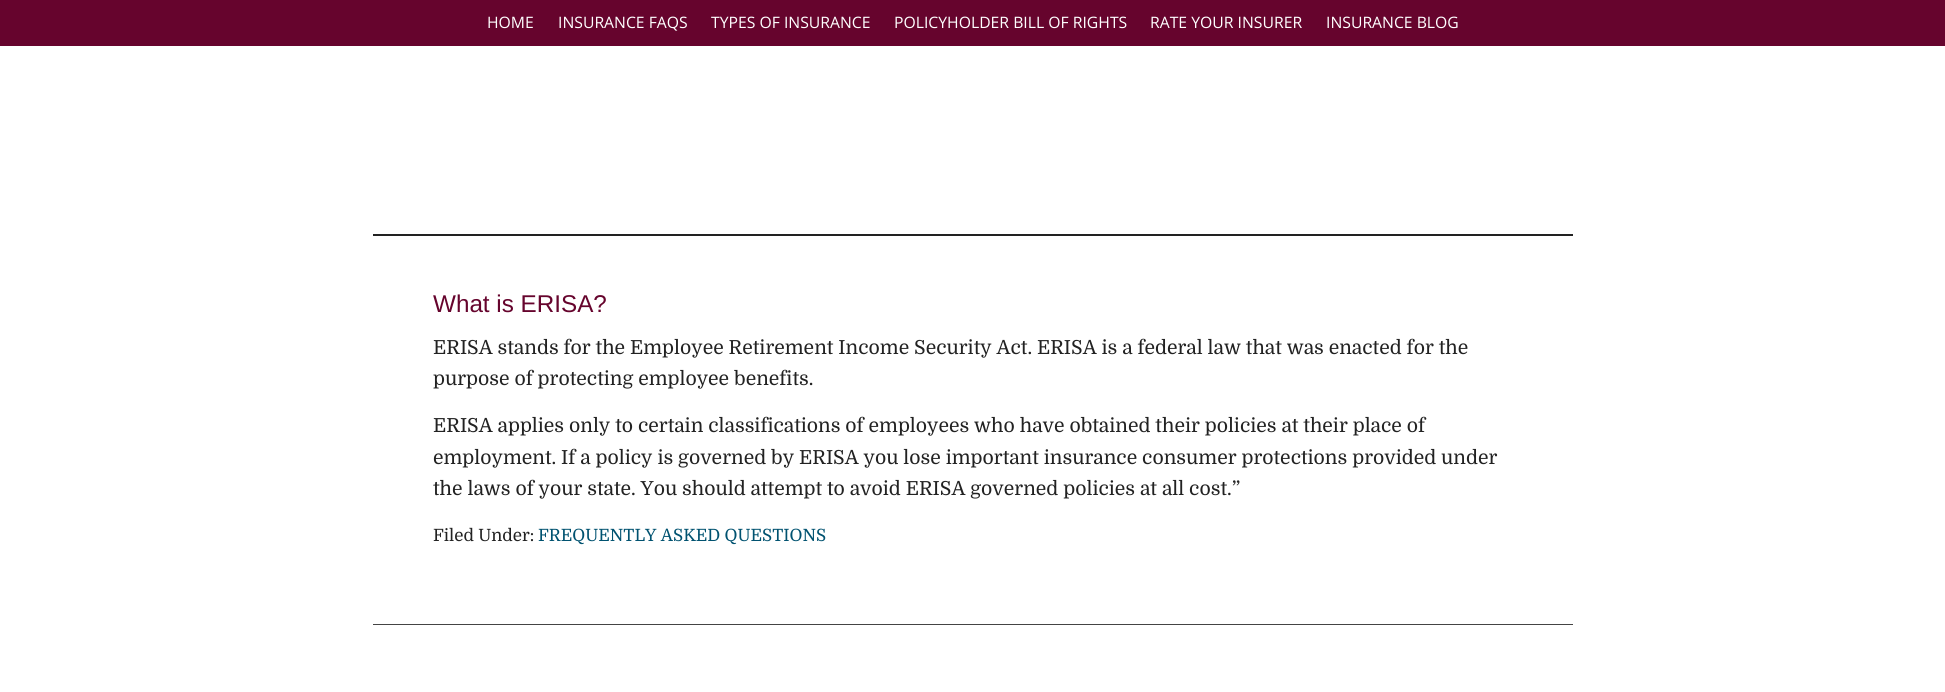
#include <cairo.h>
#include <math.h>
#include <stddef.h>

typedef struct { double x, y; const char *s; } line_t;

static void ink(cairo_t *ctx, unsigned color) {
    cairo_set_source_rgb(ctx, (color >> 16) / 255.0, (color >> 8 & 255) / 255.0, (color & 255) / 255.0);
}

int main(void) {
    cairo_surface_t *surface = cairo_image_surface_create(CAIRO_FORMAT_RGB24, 1945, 692);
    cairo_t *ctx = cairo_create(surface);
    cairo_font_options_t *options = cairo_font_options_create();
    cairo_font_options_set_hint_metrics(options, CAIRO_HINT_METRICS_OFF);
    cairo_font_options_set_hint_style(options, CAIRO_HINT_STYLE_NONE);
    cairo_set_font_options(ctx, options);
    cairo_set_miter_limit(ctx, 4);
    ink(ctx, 0xFFFFFF);
    cairo_paint(ctx);
    ink(ctx, 0x66042D);
    cairo_rectangle(ctx, 0, 0, 1945, 46);
    cairo_fill(ctx);
    cairo_select_font_face(ctx, "Open Sans", CAIRO_FONT_SLANT_NORMAL, CAIRO_FONT_WEIGHT_NORMAL);
    cairo_set_font_size(ctx, 15.75);
    ink(ctx, 0xFFFFFF);
    {
        static const line_t items[] = {
            {487, 28, "HOME"},
            {558, 28, "INSURANCE FAQS"},
            {711, 28, "TYPES OF INSURANCE"},
            {894, 28, "POLICYHOLDER BILL OF RIGHTS"},
            {1150, 28, "RATE YOUR INSURER"},
            {1326, 28, "INSURANCE BLOG"},
        };
        for (size_t i = 0; i < sizeof items / sizeof *items; i++) {
            cairo_move_to(ctx, items[i].x, items[i].y);
            cairo_show_text(ctx, items[i].s);
        }
    }
    ink(ctx, 0x222222);
    cairo_rectangle(ctx, 373, 234, 1200, 2);
    cairo_fill(ctx);
    cairo_select_font_face(ctx, "Liberation Sans", CAIRO_FONT_SLANT_NORMAL, CAIRO_FONT_WEIGHT_NORMAL);
    cairo_set_font_size(ctx, 24.25);
    ink(ctx, 0x66042D);
    cairo_move_to(ctx, 433, 312);
    cairo_show_text(ctx, "What is ERISA?");
    cairo_select_font_face(ctx, "Domine", CAIRO_FONT_SLANT_NORMAL, CAIRO_FONT_WEIGHT_NORMAL);
    cairo_set_font_size(ctx, 19.33);
    ink(ctx, 0x222222);
    {
        static const line_t items[] = {
            {433, 354, "ERISA stands for the Employee Retirement Income Security Act. ERISA is a federal law that was enacted for the"},
            {433, 385, "purpose of protecting employee benefits."},
            {433, 432, "ERISA applies only to certain classifications of employees who have obtained their policies at their place of"},
            {433, 464, "employment. If a policy is governed by ERISA you lose important insurance consumer protections provided under"},
            {433, 495, "the laws of your state. You should attempt to avoid ERISA governed policies at all cost.”"},
        };
        for (size_t i = 0; i < sizeof items / sizeof *items; i++) {
            cairo_move_to(ctx, items[i].x, items[i].y);
            cairo_show_text(ctx, items[i].s);
        }
    }
    cairo_set_font_size(ctx, 16.9);
    cairo_move_to(ctx, 433, 541);
    cairo_show_text(ctx, "Filed Under:");
    ink(ctx, 0x005270);
    cairo_move_to(ctx, 538, 541);
    cairo_show_text(ctx, "FREQUENTLY ASKED QUESTIONS");
    ink(ctx, 0x444444);
    cairo_rectangle(ctx, 373, 624, 1200, 1);
    cairo_fill(ctx);
    cairo_surface_write_to_png(surface, "image.png");
    cairo_font_options_destroy(options);
    cairo_destroy(ctx);
    cairo_surface_destroy(surface);
    return 0;
}
